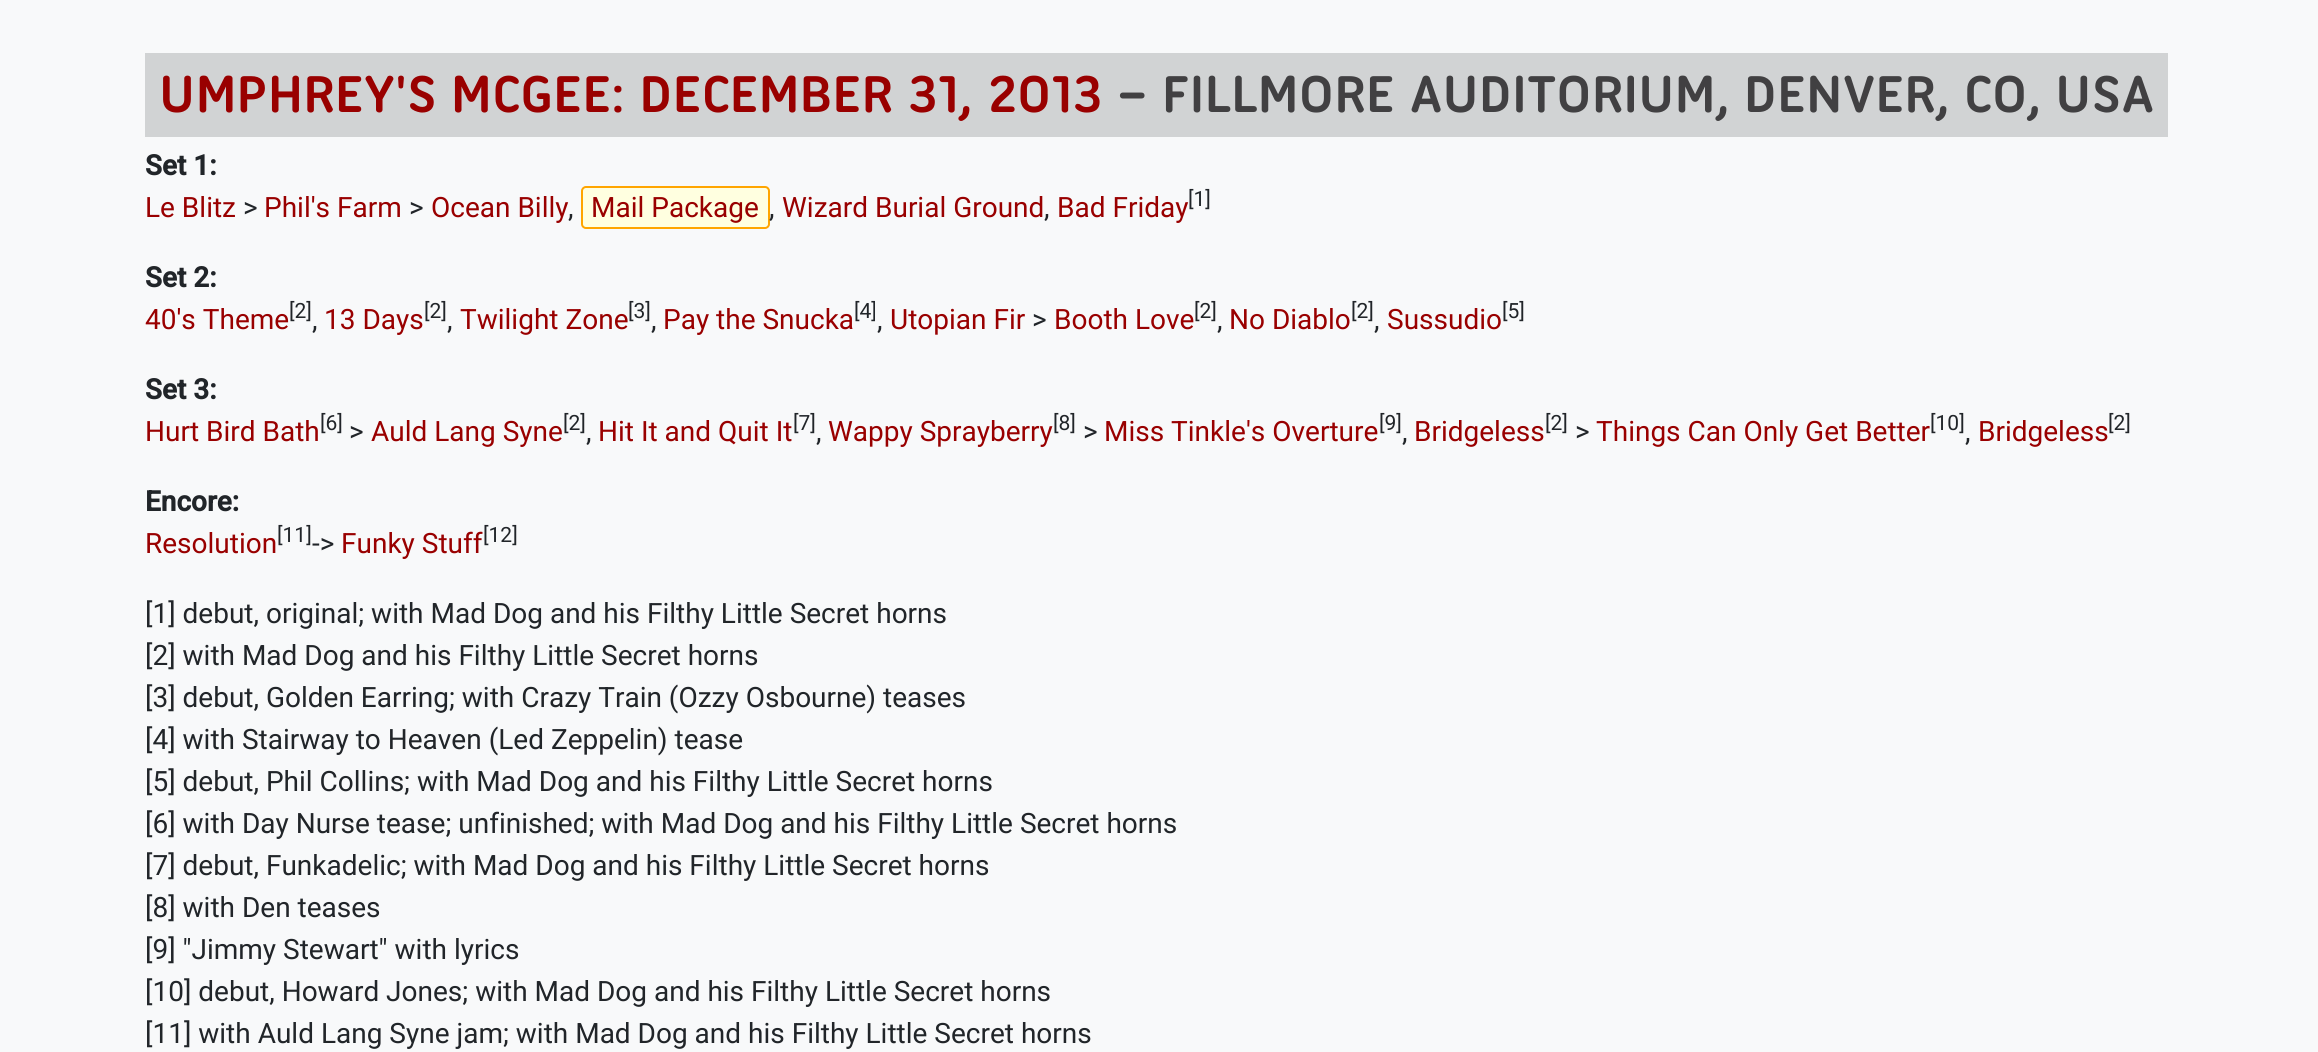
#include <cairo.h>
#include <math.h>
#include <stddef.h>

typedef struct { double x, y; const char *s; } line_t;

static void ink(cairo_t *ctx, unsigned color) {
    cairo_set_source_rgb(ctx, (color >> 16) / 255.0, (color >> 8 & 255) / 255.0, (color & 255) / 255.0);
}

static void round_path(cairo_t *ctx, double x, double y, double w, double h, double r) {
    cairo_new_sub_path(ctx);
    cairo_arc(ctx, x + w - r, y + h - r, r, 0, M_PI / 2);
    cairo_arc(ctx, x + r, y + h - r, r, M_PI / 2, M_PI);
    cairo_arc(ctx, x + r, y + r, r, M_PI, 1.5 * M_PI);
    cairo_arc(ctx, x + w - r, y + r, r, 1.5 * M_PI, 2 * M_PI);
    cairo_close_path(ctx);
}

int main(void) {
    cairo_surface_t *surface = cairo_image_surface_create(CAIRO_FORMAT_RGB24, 2318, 1052);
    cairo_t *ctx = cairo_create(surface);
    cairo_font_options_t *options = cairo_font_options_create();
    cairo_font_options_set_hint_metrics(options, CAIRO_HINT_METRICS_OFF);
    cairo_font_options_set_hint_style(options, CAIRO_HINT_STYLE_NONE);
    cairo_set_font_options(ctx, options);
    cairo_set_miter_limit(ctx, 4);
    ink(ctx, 0xF8F9FA);
    cairo_paint(ctx);
    ink(ctx, 0xD1D3D4);
    cairo_rectangle(ctx, 145, 53, 2023, 84);
    cairo_fill(ctx);
    cairo_select_font_face(ctx, "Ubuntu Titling", CAIRO_FONT_SLANT_NORMAL, CAIRO_FONT_WEIGHT_BOLD);
    cairo_set_font_size(ctx, 56);
    ink(ctx, 0x990000);
    cairo_move_to(ctx, 159, 112);
    cairo_show_text(ctx, "UMPHREY'S MCGEE: DECEMBER 31, 2013");
    ink(ctx, 0x414042);
    cairo_move_to(ctx, 1117, 112);
    cairo_show_text(ctx, "– FILLMORE AUDITORIUM, DENVER, CO, USA");
    cairo_select_font_face(ctx, "Roboto", CAIRO_FONT_SLANT_NORMAL, CAIRO_FONT_WEIGHT_BOLD);
    cairo_set_font_size(ctx, 28);
    ink(ctx, 0x212529);
    cairo_move_to(ctx, 145, 175);
    cairo_show_text(ctx, "Set 1:");
    cairo_select_font_face(ctx, "Roboto", CAIRO_FONT_SLANT_NORMAL, CAIRO_FONT_WEIGHT_NORMAL);
    ink(ctx, 0x990000);
    cairo_move_to(ctx, 145, 217);
    cairo_show_text(ctx, "Le Blitz");
    ink(ctx, 0x212529);
    cairo_move_to(ctx, 243, 217);
    cairo_show_text(ctx, ">");
    ink(ctx, 0x990000);
    cairo_move_to(ctx, 264, 217);
    cairo_show_text(ctx, "Phil's Farm");
    ink(ctx, 0x212529);
    cairo_move_to(ctx, 409, 217);
    cairo_show_text(ctx, ">");
    ink(ctx, 0x990000);
    cairo_move_to(ctx, 431, 217);
    cairo_show_text(ctx, "Ocean Billy");
    ink(ctx, 0xFFFFE0);
    round_path(ctx, 582, 187, 187, 41, 4);
    cairo_fill_preserve(ctx);
    ink(ctx, 0xFFA500);
    cairo_stroke(ctx);
    ink(ctx, 0x990000);
    {
        static const line_t items[] = {
            {591, 217, "Mail Package"},
            {782, 217, "Wizard Burial Ground"},
            {1057, 217, "Bad Friday"},
        };
        for (size_t i = 0; i < sizeof items / sizeof *items; i++) {
            cairo_move_to(ctx, items[i].x, items[i].y);
            cairo_show_text(ctx, items[i].s);
        }
    }
    cairo_set_font_size(ctx, 21);
    ink(ctx, 0x212529);
    cairo_move_to(ctx, 1188, 206);
    cairo_show_text(ctx, "[1]");
    cairo_set_font_size(ctx, 28);
    {
        static const line_t items[] = {
            {568, 217, ","},
            {769, 217, ","},
            {1044, 217, ","},
        };
        for (size_t i = 0; i < sizeof items / sizeof *items; i++) {
            cairo_move_to(ctx, items[i].x, items[i].y);
            cairo_show_text(ctx, items[i].s);
        }
    }
    cairo_select_font_face(ctx, "Roboto", CAIRO_FONT_SLANT_NORMAL, CAIRO_FONT_WEIGHT_BOLD);
    cairo_move_to(ctx, 145, 287);
    cairo_show_text(ctx, "Set 2:");
    cairo_select_font_face(ctx, "Roboto", CAIRO_FONT_SLANT_NORMAL, CAIRO_FONT_WEIGHT_NORMAL);
    ink(ctx, 0x990000);
    cairo_move_to(ctx, 145, 329);
    cairo_show_text(ctx, "40's Theme");
    cairo_set_font_size(ctx, 21);
    ink(ctx, 0x212529);
    cairo_move_to(ctx, 289, 318);
    cairo_show_text(ctx, "[2]");
    cairo_set_font_size(ctx, 28);
    ink(ctx, 0x990000);
    cairo_move_to(ctx, 324, 329);
    cairo_show_text(ctx, "13 Days");
    cairo_set_font_size(ctx, 21);
    ink(ctx, 0x212529);
    cairo_move_to(ctx, 424, 318);
    cairo_show_text(ctx, "[2]");
    cairo_set_font_size(ctx, 28);
    ink(ctx, 0x990000);
    cairo_move_to(ctx, 460, 329);
    cairo_show_text(ctx, "Twilight Zone");
    cairo_set_font_size(ctx, 21);
    ink(ctx, 0x212529);
    cairo_move_to(ctx, 628, 318);
    cairo_show_text(ctx, "[3]");
    cairo_set_font_size(ctx, 28);
    ink(ctx, 0x990000);
    cairo_move_to(ctx, 663, 329);
    cairo_show_text(ctx, "Pay the Snucka");
    cairo_set_font_size(ctx, 21);
    ink(ctx, 0x212529);
    cairo_move_to(ctx, 854, 318);
    cairo_show_text(ctx, "[4]");
    cairo_set_font_size(ctx, 28);
    ink(ctx, 0x990000);
    cairo_move_to(ctx, 890, 329);
    cairo_show_text(ctx, "Utopian Fir");
    ink(ctx, 0x212529);
    cairo_move_to(ctx, 1032, 329);
    cairo_show_text(ctx, ">");
    ink(ctx, 0x990000);
    cairo_move_to(ctx, 1054, 329);
    cairo_show_text(ctx, "Booth Love");
    cairo_set_font_size(ctx, 21);
    ink(ctx, 0x212529);
    cairo_move_to(ctx, 1194, 318);
    cairo_show_text(ctx, "[2]");
    cairo_set_font_size(ctx, 28);
    ink(ctx, 0x990000);
    cairo_move_to(ctx, 1229, 329);
    cairo_show_text(ctx, "No Diablo");
    cairo_set_font_size(ctx, 21);
    ink(ctx, 0x212529);
    cairo_move_to(ctx, 1351, 318);
    cairo_show_text(ctx, "[2]");
    cairo_set_font_size(ctx, 28);
    ink(ctx, 0x990000);
    cairo_move_to(ctx, 1387, 329);
    cairo_show_text(ctx, "Sussudio");
    cairo_set_font_size(ctx, 21);
    ink(ctx, 0x212529);
    cairo_move_to(ctx, 1502, 318);
    cairo_show_text(ctx, "[5]");
    cairo_set_font_size(ctx, 28);
    {
        static const line_t items[] = {
            {312, 329, ","},
            {447, 329, ","},
            {651, 329, ","},
            {877, 329, ","},
            {1217, 329, ","},
            {1374, 329, ","},
        };
        for (size_t i = 0; i < sizeof items / sizeof *items; i++) {
            cairo_move_to(ctx, items[i].x, items[i].y);
            cairo_show_text(ctx, items[i].s);
        }
    }
    cairo_select_font_face(ctx, "Roboto", CAIRO_FONT_SLANT_NORMAL, CAIRO_FONT_WEIGHT_BOLD);
    cairo_move_to(ctx, 145, 399);
    cairo_show_text(ctx, "Set 3:");
    cairo_select_font_face(ctx, "Roboto", CAIRO_FONT_SLANT_NORMAL, CAIRO_FONT_WEIGHT_NORMAL);
    ink(ctx, 0x990000);
    cairo_move_to(ctx, 145, 441);
    cairo_show_text(ctx, "Hurt Bird Bath");
    cairo_set_font_size(ctx, 21);
    ink(ctx, 0x212529);
    cairo_move_to(ctx, 320, 430);
    cairo_show_text(ctx, "[6]");
    cairo_set_font_size(ctx, 28);
    cairo_move_to(ctx, 349, 441);
    cairo_show_text(ctx, ">");
    ink(ctx, 0x990000);
    cairo_move_to(ctx, 371, 441);
    cairo_show_text(ctx, "Auld Lang Syne");
    cairo_set_font_size(ctx, 21);
    ink(ctx, 0x212529);
    cairo_move_to(ctx, 563, 430);
    cairo_show_text(ctx, "[2]");
    cairo_set_font_size(ctx, 28);
    ink(ctx, 0x990000);
    cairo_move_to(ctx, 598, 441);
    cairo_show_text(ctx, "Hit It and Quit It");
    cairo_set_font_size(ctx, 21);
    ink(ctx, 0x212529);
    cairo_move_to(ctx, 793, 430);
    cairo_show_text(ctx, "[7]");
    cairo_set_font_size(ctx, 28);
    ink(ctx, 0x990000);
    cairo_move_to(ctx, 828, 441);
    cairo_show_text(ctx, "Wappy Sprayberry");
    cairo_set_font_size(ctx, 21);
    ink(ctx, 0x212529);
    cairo_move_to(ctx, 1053, 430);
    cairo_show_text(ctx, "[8]");
    cairo_set_font_size(ctx, 28);
    cairo_move_to(ctx, 1083, 441);
    cairo_show_text(ctx, ">");
    ink(ctx, 0x990000);
    cairo_move_to(ctx, 1104, 441);
    cairo_show_text(ctx, "Miss Tinkle's Overture");
    cairo_set_font_size(ctx, 21);
    ink(ctx, 0x212529);
    cairo_move_to(ctx, 1379, 430);
    cairo_show_text(ctx, "[9]");
    cairo_set_font_size(ctx, 28);
    ink(ctx, 0x990000);
    cairo_move_to(ctx, 1414, 441);
    cairo_show_text(ctx, "Bridgeless");
    cairo_set_font_size(ctx, 21);
    ink(ctx, 0x212529);
    cairo_move_to(ctx, 1545, 430);
    cairo_show_text(ctx, "[2]");
    cairo_set_font_size(ctx, 28);
    cairo_move_to(ctx, 1575, 441);
    cairo_show_text(ctx, ">");
    ink(ctx, 0x990000);
    cairo_move_to(ctx, 1596, 441);
    cairo_show_text(ctx, "Things Can Only Get Better");
    cairo_set_font_size(ctx, 21);
    ink(ctx, 0x212529);
    cairo_move_to(ctx, 1930, 430);
    cairo_show_text(ctx, "[10]");
    cairo_set_font_size(ctx, 28);
    ink(ctx, 0x990000);
    cairo_move_to(ctx, 1978, 441);
    cairo_show_text(ctx, "Bridgeless");
    cairo_set_font_size(ctx, 21);
    ink(ctx, 0x212529);
    cairo_move_to(ctx, 2108, 430);
    cairo_show_text(ctx, "[2]");
    cairo_set_font_size(ctx, 28);
    {
        static const line_t items[] = {
            {586, 441, ","},
            {816, 441, ","},
            {1402, 441, ","},
            {1965, 441, ","},
        };
        for (size_t i = 0; i < sizeof items / sizeof *items; i++) {
            cairo_move_to(ctx, items[i].x, items[i].y);
            cairo_show_text(ctx, items[i].s);
        }
    }
    cairo_select_font_face(ctx, "Roboto", CAIRO_FONT_SLANT_NORMAL, CAIRO_FONT_WEIGHT_BOLD);
    cairo_move_to(ctx, 145, 511);
    cairo_show_text(ctx, "Encore:");
    cairo_select_font_face(ctx, "Roboto", CAIRO_FONT_SLANT_NORMAL, CAIRO_FONT_WEIGHT_NORMAL);
    ink(ctx, 0x990000);
    cairo_move_to(ctx, 145, 553);
    cairo_show_text(ctx, "Resolution");
    cairo_set_font_size(ctx, 21);
    ink(ctx, 0x212529);
    cairo_move_to(ctx, 277, 542);
    cairo_show_text(ctx, "[11]");
    cairo_set_font_size(ctx, 28);
    cairo_move_to(ctx, 312, 553);
    cairo_show_text(ctx, "->");
    ink(ctx, 0x990000);
    cairo_move_to(ctx, 341, 553);
    cairo_show_text(ctx, "Funky Stuff");
    cairo_set_font_size(ctx, 21);
    ink(ctx, 0x212529);
    cairo_move_to(ctx, 483, 542);
    cairo_show_text(ctx, "[12]");
    cairo_set_font_size(ctx, 28);
    {
        static const line_t items[] = {
            {145, 623, "[1] debut, original; with Mad Dog and his Filthy Little Secret horns"},
            {145, 665, "[2] with Mad Dog and his Filthy Little Secret horns"},
            {145, 707, "[3] debut, Golden Earring; with Crazy Train (Ozzy Osbourne) teases"},
            {145, 749, "[4] with Stairway to Heaven (Led Zeppelin) tease"},
            {145, 791, "[5] debut, Phil Collins; with Mad Dog and his Filthy Little Secret horns"},
            {145, 833, "[6] with Day Nurse tease; unfinished; with Mad Dog and his Filthy Little Secret horns"},
            {145, 875, "[7] debut, Funkadelic; with Mad Dog and his Filthy Little Secret horns"},
            {145, 917, "[8] with Den teases"},
            {145, 959, "[9] \"Jimmy Stewart\" with lyrics"},
            {145, 1001, "[10] debut, Howard Jones; with Mad Dog and his Filthy Little Secret horns"},
            {145, 1043, "[11] with Auld Lang Syne jam; with Mad Dog and his Filthy Little Secret horns"},
        };
        for (size_t i = 0; i < sizeof items / sizeof *items; i++) {
            cairo_move_to(ctx, items[i].x, items[i].y);
            cairo_show_text(ctx, items[i].s);
        }
    }
    cairo_surface_write_to_png(surface, "image.png");
    cairo_font_options_destroy(options);
    cairo_destroy(ctx);
    cairo_surface_destroy(surface);
    return 0;
}
